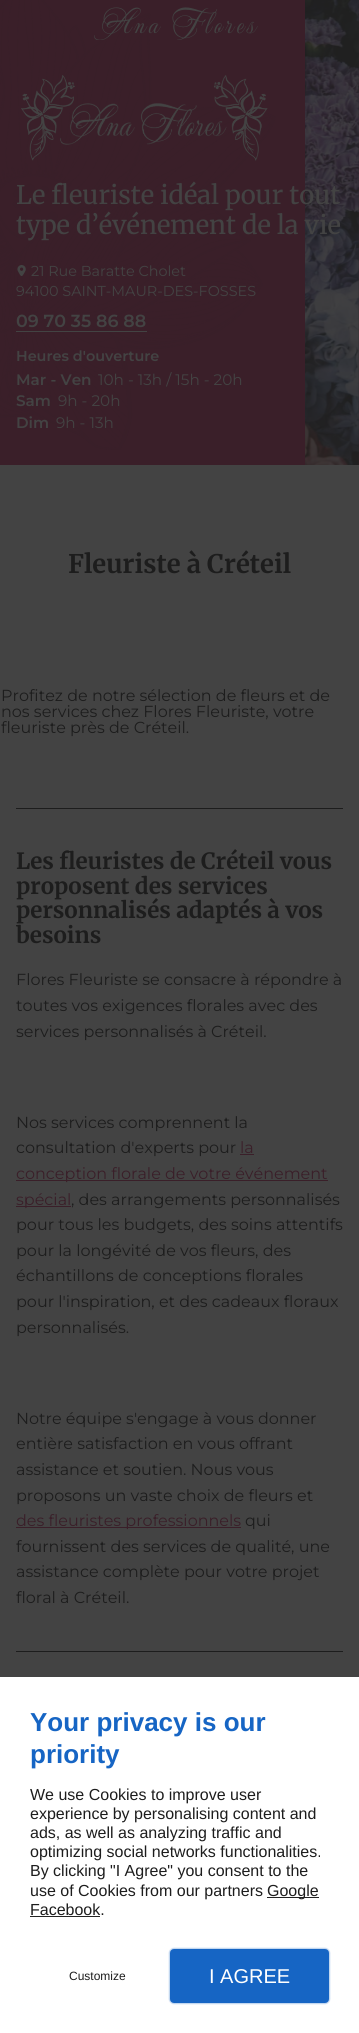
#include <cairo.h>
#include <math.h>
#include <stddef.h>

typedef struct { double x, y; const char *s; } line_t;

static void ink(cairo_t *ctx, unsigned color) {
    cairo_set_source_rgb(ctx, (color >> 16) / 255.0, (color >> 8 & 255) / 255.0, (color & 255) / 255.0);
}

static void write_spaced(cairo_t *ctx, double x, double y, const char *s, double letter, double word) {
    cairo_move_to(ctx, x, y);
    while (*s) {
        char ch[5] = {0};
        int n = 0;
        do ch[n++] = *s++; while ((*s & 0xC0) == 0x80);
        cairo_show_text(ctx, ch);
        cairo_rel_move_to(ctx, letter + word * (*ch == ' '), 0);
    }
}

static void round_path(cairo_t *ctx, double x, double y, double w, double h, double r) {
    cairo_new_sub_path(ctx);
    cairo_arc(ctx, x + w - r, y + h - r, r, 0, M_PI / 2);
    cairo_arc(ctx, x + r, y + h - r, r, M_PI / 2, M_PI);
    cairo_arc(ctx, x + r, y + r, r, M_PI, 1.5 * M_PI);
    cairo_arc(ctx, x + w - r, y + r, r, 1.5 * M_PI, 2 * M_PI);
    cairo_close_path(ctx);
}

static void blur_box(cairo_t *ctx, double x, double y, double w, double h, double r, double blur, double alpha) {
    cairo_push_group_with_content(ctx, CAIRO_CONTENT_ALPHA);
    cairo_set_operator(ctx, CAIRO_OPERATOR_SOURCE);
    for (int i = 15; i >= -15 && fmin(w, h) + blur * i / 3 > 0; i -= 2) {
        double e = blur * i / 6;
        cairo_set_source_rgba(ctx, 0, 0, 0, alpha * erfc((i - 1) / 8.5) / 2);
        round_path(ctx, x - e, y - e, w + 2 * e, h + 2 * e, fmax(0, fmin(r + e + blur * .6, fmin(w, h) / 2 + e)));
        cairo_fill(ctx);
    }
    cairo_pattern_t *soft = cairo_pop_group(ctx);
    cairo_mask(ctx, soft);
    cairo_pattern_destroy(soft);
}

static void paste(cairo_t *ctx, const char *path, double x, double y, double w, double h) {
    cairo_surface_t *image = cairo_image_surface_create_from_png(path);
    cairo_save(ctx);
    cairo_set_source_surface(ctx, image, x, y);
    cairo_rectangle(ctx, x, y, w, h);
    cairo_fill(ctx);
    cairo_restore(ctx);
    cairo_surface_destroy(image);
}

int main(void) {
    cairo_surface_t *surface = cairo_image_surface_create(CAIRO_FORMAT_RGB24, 359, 2033);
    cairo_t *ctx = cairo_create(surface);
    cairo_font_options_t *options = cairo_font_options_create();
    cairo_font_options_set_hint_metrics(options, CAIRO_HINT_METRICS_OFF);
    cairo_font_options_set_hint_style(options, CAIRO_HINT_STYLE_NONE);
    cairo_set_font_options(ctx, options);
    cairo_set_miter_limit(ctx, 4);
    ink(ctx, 0x434343);
    cairo_paint(ctx);
    ink(ctx, 0x3A1F29);
    cairo_rectangle(ctx, 0, 0, 359, 465);
    cairo_fill(ctx);
    paste(ctx, "media/1.png", 0, 0, 276, 450);
    paste(ctx, "media/2.png", 305, 0, 54, 465);
    cairo_save(ctx);
    cairo_rectangle(ctx, 16, 0, 327, 40);
    cairo_clip(ctx);
    cairo_select_font_face(ctx, "Mea Culpa", CAIRO_FONT_SLANT_NORMAL, CAIRO_FONT_WEIGHT_NORMAL);
    cairo_set_font_size(ctx, 32);
    ink(ctx, 0x434343);
    write_spaced(ctx, 101, 33, "Ana Flores", 3.25, 0);
    cairo_restore(ctx);
    paste(ctx, "media/3.png", 21, 75, 247, 86);
    cairo_select_font_face(ctx, "Merriweather", CAIRO_FONT_SLANT_NORMAL, CAIRO_FONT_WEIGHT_NORMAL);
    cairo_set_font_size(ctx, 25.6);
    ink(ctx, 0x434343);
    cairo_move_to(ctx, 16, 204);
    cairo_show_text(ctx, "Le fleuriste idéal pour tout");
    cairo_move_to(ctx, 16, 234);
    cairo_show_text(ctx, "type d’événement de la vie");
    paste(ctx, "media/4.png", 17, 265, 9, 11);
    cairo_select_font_face(ctx, "Montserrat", CAIRO_FONT_SLANT_NORMAL, CAIRO_FONT_WEIGHT_NORMAL);
    cairo_set_font_size(ctx, 14.4);
    cairo_move_to(ctx, 31, 276);
    cairo_show_text(ctx, "21 Rue Baratte Cholet");
    cairo_move_to(ctx, 16, 296);
    cairo_show_text(ctx, "94100 SAINT-MAUR-DES-FOSSES");
    cairo_select_font_face(ctx, "Montserrat SemiBold", CAIRO_FONT_SLANT_NORMAL, CAIRO_FONT_WEIGHT_NORMAL);
    cairo_set_font_size(ctx, 17.5);
    cairo_move_to(ctx, 16, 327);
    cairo_show_text(ctx, "09 70 35 86 88");
    cairo_rectangle(ctx, 16, 331, 131, 1);
    cairo_fill(ctx);
    cairo_set_font_size(ctx, 14.4);
    cairo_move_to(ctx, 16, 361);
    cairo_show_text(ctx, "Heures d'ouverture");
    cairo_set_font_size(ctx, 15.25);
    cairo_move_to(ctx, 16, 385);
    cairo_show_text(ctx, "Mar - Ven");
    cairo_select_font_face(ctx, "Montserrat", CAIRO_FONT_SLANT_NORMAL, CAIRO_FONT_WEIGHT_NORMAL);
    cairo_move_to(ctx, 98, 385);
    cairo_show_text(ctx, "10h - 13h / 15h - 20h");
    cairo_select_font_face(ctx, "Montserrat SemiBold", CAIRO_FONT_SLANT_NORMAL, CAIRO_FONT_WEIGHT_NORMAL);
    cairo_move_to(ctx, 16, 406);
    cairo_show_text(ctx, "Sam");
    cairo_select_font_face(ctx, "Montserrat", CAIRO_FONT_SLANT_NORMAL, CAIRO_FONT_WEIGHT_NORMAL);
    cairo_move_to(ctx, 58, 406);
    cairo_show_text(ctx, "9h - 20h");
    cairo_select_font_face(ctx, "Montserrat SemiBold", CAIRO_FONT_SLANT_NORMAL, CAIRO_FONT_WEIGHT_NORMAL);
    cairo_move_to(ctx, 16, 428);
    cairo_show_text(ctx, "Dim");
    cairo_select_font_face(ctx, "Montserrat", CAIRO_FONT_SLANT_NORMAL, CAIRO_FONT_WEIGHT_NORMAL);
    cairo_move_to(ctx, 56, 428);
    cairo_show_text(ctx, "9h - 13h");
    cairo_select_font_face(ctx, "Merriweather", CAIRO_FONT_SLANT_NORMAL, CAIRO_FONT_WEIGHT_BOLD);
    cairo_set_font_size(ctx, 25.6);
    ink(ctx, 0x1D1D1D);
    cairo_move_to(ctx, 68, 573);
    cairo_show_text(ctx, "Fleuriste à Créteil");
    cairo_select_font_face(ctx, "Montserrat", CAIRO_FONT_SLANT_NORMAL, CAIRO_FONT_WEIGHT_NORMAL);
    cairo_set_font_size(ctx, 16);
    {
        static const line_t items[] = {
            {1, 701, "Profitez de notre sélection de fleurs et de"},
            {1, 717, "nos services chez Flores Fleuriste, votre"},
            {1, 733, "fleuriste près de Créteil."},
        };
        for (size_t i = 0; i < sizeof items / sizeof *items; i++) {
            cairo_move_to(ctx, items[i].x, items[i].y);
            cairo_show_text(ctx, items[i].s);
        }
    }
    cairo_rectangle(ctx, 16, 808, 327, 1);
    cairo_fill(ctx);
    cairo_select_font_face(ctx, "Merriweather", CAIRO_FONT_SLANT_NORMAL, CAIRO_FONT_WEIGHT_BOLD);
    cairo_set_font_size(ctx, 22.4);
    {
        static const line_t items[] = {
            {16, 869, "Les fleuristes de Créteil vous"},
            {16, 894, "proposent des services"},
            {16, 918, "personnalisés adaptés à vos"},
            {16, 943, "besoins"},
        };
        for (size_t i = 0; i < sizeof items / sizeof *items; i++) {
            cairo_move_to(ctx, items[i].x, items[i].y);
            cairo_show_text(ctx, items[i].s);
        }
    }
    cairo_select_font_face(ctx, "Montserrat", CAIRO_FONT_SLANT_NORMAL, CAIRO_FONT_WEIGHT_NORMAL);
    cairo_set_font_size(ctx, 16);
    {
        static const line_t items[] = {
            {16, 985, "Flores Fleuriste se consacre à répondre à"},
            {16, 1011, "toutes vos exigences florales avec des"},
            {16, 1037, "services personnalisés à Créteil."},
            {16, 1128, "Nos services comprennent la"},
            {16, 1153, "consultation d'experts pour"},
        };
        for (size_t i = 0; i < sizeof items / sizeof *items; i++) {
            cairo_move_to(ctx, items[i].x, items[i].y);
            cairo_show_text(ctx, items[i].s);
        }
    }
    ink(ctx, 0x3A1F29);
    cairo_move_to(ctx, 240, 1153);
    cairo_show_text(ctx, "la");
    cairo_rectangle(ctx, 240, 1154, 14, 1);
    cairo_fill(ctx);
    cairo_rectangle(ctx, 16, 1180, 312, 1);
    cairo_fill(ctx);
    cairo_move_to(ctx, 16, 1179);
    cairo_show_text(ctx, "conception florale de votre événement");
    cairo_rectangle(ctx, 16, 1206, 55, 1);
    cairo_fill(ctx);
    cairo_move_to(ctx, 16, 1205);
    cairo_show_text(ctx, "spécial");
    ink(ctx, 0x1D1D1D);
    {
        static const line_t items[] = {
            {71, 1205, ", des arrangements personnalisés"},
            {16, 1230, "pour tous les budgets, des soins attentifs"},
            {16, 1256, "pour la longévité de vos fleurs, des"},
            {16, 1281, "échantillons de conceptions florales"},
            {16, 1307, "pour l'inspiration, et des cadeaux floraux"},
            {16, 1333, "personnalisés."},
            {16, 1424, "Notre équipe s'engage à vous donner"},
            {16, 1449, "entière satisfaction en vous offrant"},
            {16, 1475, "assistance et soutien. Nous vous"},
            {16, 1501, "proposons un vaste choix de fleurs et"},
        };
        for (size_t i = 0; i < sizeof items / sizeof *items; i++) {
            cairo_move_to(ctx, items[i].x, items[i].y);
            cairo_show_text(ctx, items[i].s);
        }
    }
    ink(ctx, 0x3A1F29);
    cairo_rectangle(ctx, 16, 1527, 225, 1);
    cairo_fill(ctx);
    cairo_move_to(ctx, 16, 1526);
    cairo_show_text(ctx, "des fleuristes professionnels");
    ink(ctx, 0x1D1D1D);
    {
        static const line_t items[] = {
            {245, 1526, "qui"},
            {16, 1552, "fournissent des services de qualité, une"},
            {16, 1577, "assistance complète pour votre projet"},
            {16, 1603, "floral à Créteil."},
        };
        for (size_t i = 0; i < sizeof items / sizeof *items; i++) {
            cairo_move_to(ctx, items[i].x, items[i].y);
            cairo_show_text(ctx, items[i].s);
        }
    }
    cairo_rectangle(ctx, 16, 1651, 327, 1);
    cairo_fill(ctx);
    ink(ctx, 0xFFFFFF);
    cairo_rectangle(ctx, 0, 1677, 359, 356);
    cairo_fill(ctx);
    cairo_select_font_face(ctx, "Liberation Sans", CAIRO_FONT_SLANT_NORMAL, CAIRO_FONT_WEIGHT_BOLD);
    cairo_set_font_size(ctx, 26);
    ink(ctx, 0x1665C4);
    cairo_move_to(ctx, 30, 1731);
    cairo_show_text(ctx, "Your privacy is our");
    cairo_move_to(ctx, 30, 1763);
    cairo_show_text(ctx, "priority");
    cairo_select_font_face(ctx, "Liberation Sans", CAIRO_FONT_SLANT_NORMAL, CAIRO_FONT_WEIGHT_NORMAL);
    cairo_set_font_size(ctx, 16);
    ink(ctx, 0x1D1D1D);
    {
        static const line_t items[] = {
            {30, 1800, "We use Cookies to improve user"},
            {30, 1819, "experience by personalising content and"},
            {30, 1838, "ads, as well as analyzing traffic and"},
            {30, 1857, "optimizing social networks functionalities."},
            {30, 1876, "By clicking \"I Agree\" you consent to the"},
            {30, 1896, "use of Cookies from our partners"},
        };
        for (size_t i = 0; i < sizeof items / sizeof *items; i++) {
            cairo_move_to(ctx, items[i].x, items[i].y);
            cairo_show_text(ctx, items[i].s);
        }
    }
    ink(ctx, 0x222222);
    cairo_rectangle(ctx, 267, 1897, 52, 1);
    cairo_fill(ctx);
    ink(ctx, 0x1D1D1D);
    cairo_move_to(ctx, 267, 1896);
    cairo_show_text(ctx, "Google");
    cairo_move_to(ctx, 30, 1915);
    cairo_show_text(ctx, "Facebook.");
    ink(ctx, 0x222222);
    cairo_rectangle(ctx, 30, 1916, 70, 1);
    cairo_fill(ctx);
    cairo_set_font_size(ctx, 12);
    ink(ctx, 0x1D1D1D);
    cairo_move_to(ctx, 69, 1980);
    cairo_show_text(ctx, "Customize");
    ink(ctx, 0x1665C4);
    blur_box(ctx, 169, 1948, 161, 56, 5, 0.5, 0.3);
    ink(ctx, 0x1665C4);
    round_path(ctx, 171, 1950, 157, 52, 3);
    cairo_fill_preserve(ctx);
    cairo_stroke(ctx);
    cairo_set_font_size(ctx, 20);
    ink(ctx, 0xFFFFFF);
    cairo_move_to(ctx, 209, 1983);
    cairo_show_text(ctx, "I AGREE");
    cairo_surface_write_to_png(surface, "image.png");
    cairo_font_options_destroy(options);
    cairo_destroy(ctx);
    cairo_surface_destroy(surface);
    return 0;
}
